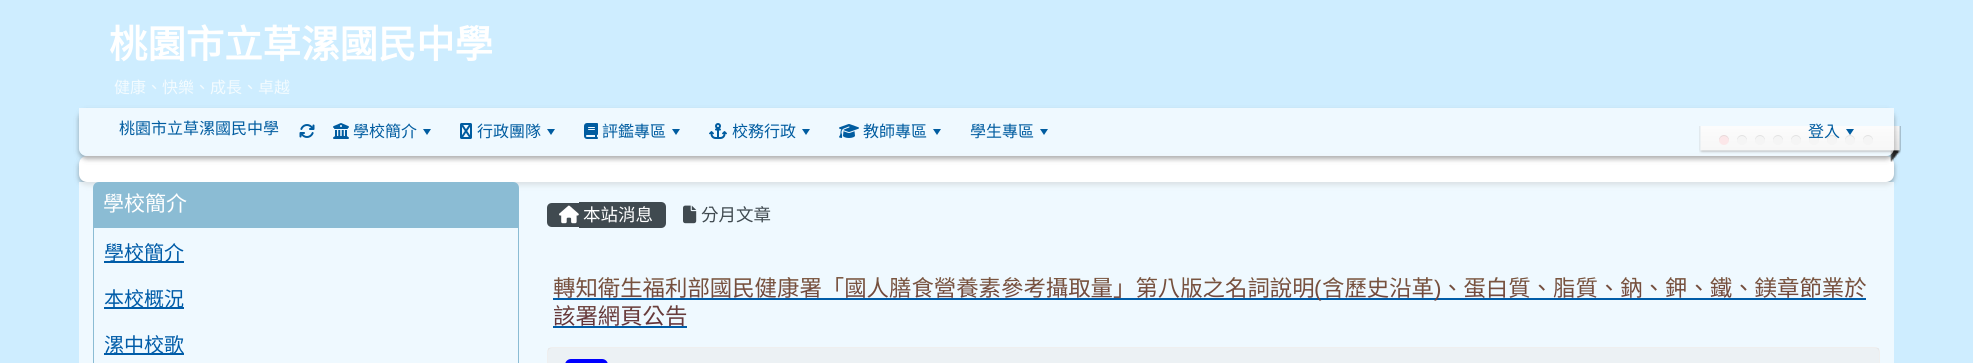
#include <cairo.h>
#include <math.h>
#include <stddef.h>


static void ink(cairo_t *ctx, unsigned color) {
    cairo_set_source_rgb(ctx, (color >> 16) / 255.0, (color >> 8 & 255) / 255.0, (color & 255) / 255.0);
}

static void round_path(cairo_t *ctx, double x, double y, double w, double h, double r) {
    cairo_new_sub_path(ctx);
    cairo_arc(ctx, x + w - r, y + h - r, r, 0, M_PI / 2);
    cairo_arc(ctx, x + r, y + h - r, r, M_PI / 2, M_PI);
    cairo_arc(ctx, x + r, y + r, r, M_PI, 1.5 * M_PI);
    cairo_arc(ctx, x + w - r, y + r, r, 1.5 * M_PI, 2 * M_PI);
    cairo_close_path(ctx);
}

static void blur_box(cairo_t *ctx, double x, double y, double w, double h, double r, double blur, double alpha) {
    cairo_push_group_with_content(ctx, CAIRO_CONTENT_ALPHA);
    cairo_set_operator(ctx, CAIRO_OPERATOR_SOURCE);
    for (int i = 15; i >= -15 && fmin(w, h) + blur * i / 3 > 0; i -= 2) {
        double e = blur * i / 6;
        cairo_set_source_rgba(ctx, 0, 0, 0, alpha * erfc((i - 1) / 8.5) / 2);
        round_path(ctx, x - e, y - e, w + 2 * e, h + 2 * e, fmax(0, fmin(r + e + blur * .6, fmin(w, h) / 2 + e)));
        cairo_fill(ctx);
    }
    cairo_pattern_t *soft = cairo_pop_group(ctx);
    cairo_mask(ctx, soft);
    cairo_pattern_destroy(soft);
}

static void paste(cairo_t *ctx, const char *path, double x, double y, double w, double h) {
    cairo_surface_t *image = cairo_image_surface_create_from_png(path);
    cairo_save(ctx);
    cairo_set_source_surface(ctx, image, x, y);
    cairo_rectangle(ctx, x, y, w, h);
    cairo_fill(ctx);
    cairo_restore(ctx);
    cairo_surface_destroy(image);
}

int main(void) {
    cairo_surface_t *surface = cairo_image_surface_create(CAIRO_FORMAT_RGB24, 1973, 363);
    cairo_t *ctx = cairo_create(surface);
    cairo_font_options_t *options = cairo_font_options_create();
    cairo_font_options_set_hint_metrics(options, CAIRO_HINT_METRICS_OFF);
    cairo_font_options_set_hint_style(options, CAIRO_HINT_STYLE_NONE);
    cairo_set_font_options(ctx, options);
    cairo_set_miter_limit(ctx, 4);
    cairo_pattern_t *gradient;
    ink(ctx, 0xCEEDFF);
    cairo_paint(ctx);
    cairo_select_font_face(ctx, "Noto Sans CJK TC", CAIRO_FONT_SLANT_NORMAL, CAIRO_FONT_WEIGHT_BOLD);
    cairo_set_font_size(ctx, 38.4);
    ink(ctx, 0xFFFFFF);
    cairo_move_to(ctx, 109, 58);
    cairo_show_text(ctx, "桃園市立草漯國民中學");
    cairo_select_font_face(ctx, "Noto Sans CJK TC", CAIRO_FONT_SLANT_NORMAL, CAIRO_FONT_WEIGHT_NORMAL);
    cairo_set_font_size(ctx, 16);
    ink(ctx, 0xF3FBFF);
    cairo_move_to(ctx, 114, 93);
    cairo_show_text(ctx, "健康、快樂、成長、卓越");
    ink(ctx, 0x323232);
    blur_box(ctx, 79, 159, 1815, 26, 8, 2.5, 0.4);
    ink(ctx, 0xFFFFFF);
    round_path(ctx, 79, 156, 1815, 26, 8);
    cairo_fill(ctx);
    paste(ctx, "media/7.png", 1699, 126, 202, 36);
    paste(ctx, "media/8.png", 1719, 135, 10, 10);
    paste(ctx, "media/9.png", 1737, 135, 10, 10);
    paste(ctx, "media/9.png", 1755, 135, 10, 10);
    paste(ctx, "media/9.png", 1773, 135, 10, 10);
    paste(ctx, "media/9.png", 1791, 135, 10, 10);
    paste(ctx, "media/9.png", 1809, 135, 10, 10);
    paste(ctx, "media/9.png", 1827, 135, 10, 10);
    paste(ctx, "media/9.png", 1845, 135, 10, 10);
    paste(ctx, "media/9.png", 1863, 135, 10, 10);
    cairo_save(ctx);
    cairo_set_fill_rule(ctx, CAIRO_FILL_RULE_EVEN_ODD);
    cairo_new_path(ctx);
    cairo_move_to(ctx, 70, 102);
    cairo_line_to(ctx, 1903, 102);
    cairo_line_to(ctx, 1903, 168);
    cairo_line_to(ctx, 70, 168);
    cairo_close_path(ctx);
    cairo_move_to(ctx, 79, 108);
    cairo_line_to(ctx, 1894, 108);
    cairo_line_to(ctx, 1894, 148);
    cairo_curve_to(ctx, 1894, 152.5, 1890.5, 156, 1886, 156);
    cairo_line_to(ctx, 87, 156);
    cairo_curve_to(ctx, 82.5, 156, 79, 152.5, 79, 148);
    cairo_close_path(ctx);
    cairo_clip(ctx);
    ink(ctx, 0x323232);
    blur_box(ctx, 79, 111, 1815, 48, 8, 2.5, 0.4);
    cairo_restore(ctx);
    cairo_set_source_rgba(ctx, 1, 1, 1, 0.67);
    cairo_new_path(ctx);
    cairo_move_to(ctx, 79, 108);
    cairo_line_to(ctx, 1894, 108);
    cairo_line_to(ctx, 1894, 148);
    cairo_curve_to(ctx, 1894, 152.5, 1890.5, 156, 1886, 156);
    cairo_line_to(ctx, 87, 156);
    cairo_curve_to(ctx, 82.5, 156, 79, 152.5, 79, 148);
    cairo_close_path(ctx);
    cairo_fill(ctx);
    ink(ctx, 0x005CA0);
    cairo_move_to(ctx, 119, 134);
    cairo_show_text(ctx, "桃園市立草漯國民中學");
    paste(ctx, "media/1.png", 299, 124, 16, 14);
    paste(ctx, "media/2.png", 333, 123, 16, 16);
    cairo_move_to(ctx, 353, 137);
    cairo_show_text(ctx, "學校簡介");
    cairo_new_path(ctx);
    cairo_move_to(ctx, 423, 129);
    cairo_line_to(ctx, 431, 129);
    cairo_line_to(ctx, 427, 135);
    cairo_close_path(ctx);
    cairo_fill(ctx);
    paste(ctx, "media/3.png", 460, 123, 12, 16);
    cairo_move_to(ctx, 477, 137);
    cairo_show_text(ctx, "行政團隊");
    cairo_new_path(ctx);
    cairo_move_to(ctx, 547, 129);
    cairo_line_to(ctx, 555, 129);
    cairo_line_to(ctx, 551, 135);
    cairo_close_path(ctx);
    cairo_fill(ctx);
    paste(ctx, "media/4.png", 584, 123, 14, 16);
    cairo_move_to(ctx, 602, 137);
    cairo_show_text(ctx, "評鑑專區");
    cairo_new_path(ctx);
    cairo_move_to(ctx, 672, 129);
    cairo_line_to(ctx, 680, 129);
    cairo_line_to(ctx, 676, 135);
    cairo_close_path(ctx);
    cairo_fill(ctx);
    paste(ctx, "media/5.png", 709, 123, 18, 16);
    cairo_move_to(ctx, 732, 137);
    cairo_show_text(ctx, "校務行政");
    cairo_new_path(ctx);
    cairo_move_to(ctx, 802, 129);
    cairo_line_to(ctx, 810, 129);
    cairo_line_to(ctx, 806, 135);
    cairo_close_path(ctx);
    cairo_fill(ctx);
    paste(ctx, "media/6.png", 839, 124, 20, 14);
    cairo_move_to(ctx, 863, 137);
    cairo_show_text(ctx, "教師專區");
    cairo_new_path(ctx);
    cairo_move_to(ctx, 933, 129);
    cairo_line_to(ctx, 941, 129);
    cairo_line_to(ctx, 937, 135);
    cairo_close_path(ctx);
    cairo_fill(ctx);
    cairo_move_to(ctx, 970, 137);
    cairo_show_text(ctx, "學生專區");
    cairo_new_path(ctx);
    cairo_move_to(ctx, 1040, 129);
    cairo_line_to(ctx, 1048, 129);
    cairo_line_to(ctx, 1044, 135);
    cairo_close_path(ctx);
    cairo_fill(ctx);
    cairo_move_to(ctx, 1808, 137);
    cairo_show_text(ctx, "登入");
    cairo_new_path(ctx);
    cairo_move_to(ctx, 1846, 129);
    cairo_line_to(ctx, 1854, 129);
    cairo_line_to(ctx, 1850, 135);
    cairo_close_path(ctx);
    cairo_fill(ctx);
    cairo_set_source_rgba(ctx, 1, 1, 1, 0.67);
    cairo_rectangle(ctx, 79, 182, 1815, 181);
    cairo_fill(ctx);
    ink(ctx, 0x8BBCD4);
    cairo_new_path(ctx);
    cairo_move_to(ctx, 99, 182);
    cairo_line_to(ctx, 513, 182);
    cairo_curve_to(ctx, 516.5, 182, 519, 184.5, 519, 188);
    cairo_line_to(ctx, 519, 227);
    cairo_line_to(ctx, 93, 227);
    cairo_line_to(ctx, 93, 188);
    cairo_curve_to(ctx, 93, 184.5, 95.5, 182, 99, 182);
    cairo_close_path(ctx);
    cairo_fill(ctx);
    cairo_set_font_size(ctx, 21);
    ink(ctx, 0xFFFFFF);
    cairo_move_to(ctx, 103, 211);
    cairo_show_text(ctx, "學校簡介");
    cairo_rectangle(ctx, 93.5, 227.5, 425, 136);
    ink(ctx, 0x8BBCD4);
    cairo_set_line_width(ctx, 1);
    cairo_stroke(ctx);
    ink(ctx, 0x005CA8);
    cairo_rectangle(ctx, 104, 261, 80, 2);
    cairo_fill(ctx);
    cairo_set_font_size(ctx, 20);
    cairo_move_to(ctx, 104, 260);
    cairo_show_text(ctx, "學校簡介");
    cairo_rectangle(ctx, 104, 307, 80, 2);
    cairo_fill(ctx);
    cairo_move_to(ctx, 104, 306);
    cairo_show_text(ctx, "本校概況");
    cairo_rectangle(ctx, 104, 353, 80, 2);
    cairo_fill(ctx);
    cairo_move_to(ctx, 104, 352);
    cairo_show_text(ctx, "漯中校歌");
    ink(ctx, 0x404A50);
    cairo_new_path(ctx);
    cairo_move_to(ctx, 552, 203);
    cairo_line_to(ctx, 579, 203);
    cairo_line_to(ctx, 579, 227);
    cairo_line_to(ctx, 552, 227);
    cairo_curve_to(ctx, 549, 227, 547, 225, 547, 222);
    cairo_line_to(ctx, 547, 208);
    cairo_curve_to(ctx, 547, 205, 549, 203, 552, 203);
    cairo_close_path(ctx);
    cairo_fill(ctx);
    cairo_new_path(ctx);
    cairo_move_to(ctx, 579, 202);
    cairo_line_to(ctx, 661, 202);
    cairo_curve_to(ctx, 664, 202, 666, 204, 666, 207);
    cairo_line_to(ctx, 666, 223);
    cairo_curve_to(ctx, 666, 226, 664, 228, 661, 228);
    cairo_line_to(ctx, 579, 228);
    cairo_close_path(ctx);
    cairo_fill(ctx);
    paste(ctx, "media/10.png", 559, 205, 20, 19);
    cairo_set_font_size(ctx, 17.5);
    ink(ctx, 0xFFFFFF);
    cairo_move_to(ctx, 583, 221);
    cairo_show_text(ctx, "本站消息");
    paste(ctx, "media/11.png", 683, 205, 14, 19);
    ink(ctx, 0x404A50);
    cairo_move_to(ctx, 701, 221);
    cairo_show_text(ctx, "分月文章");
    cairo_set_font_size(ctx, 22.4);
    gradient = cairo_pattern_create_linear(1213, 269, 1213, 337);
    cairo_pattern_add_color_stop_rgba(gradient, 0, 0.494, 0.361, 0.251, 1);
    cairo_pattern_add_color_stop_rgba(gradient, 1, 0.361, 0.161, 0.22, 1);
    cairo_set_source(ctx, gradient);
    cairo_pattern_destroy(gradient);
    cairo_move_to(ctx, 553, 296);
    cairo_show_text(ctx, "轉知衛生福利部國民健康署「國人膳食營養素參考攝取量」第八版之名詞說明");
    ink(ctx, 0x005CA8);
    cairo_rectangle(ctx, 553, 298, 1313, 2);
    cairo_fill(ctx);
    cairo_select_font_face(ctx, "Liberation Sans", CAIRO_FONT_SLANT_NORMAL, CAIRO_FONT_WEIGHT_NORMAL);
    gradient = cairo_pattern_create_linear(1213, 269, 1213, 337);
    cairo_pattern_add_color_stop_rgba(gradient, 0, 0.494, 0.361, 0.251, 1);
    cairo_pattern_add_color_stop_rgba(gradient, 1, 0.361, 0.161, 0.22, 1);
    cairo_set_source(ctx, gradient);
    cairo_pattern_destroy(gradient);
    cairo_move_to(ctx, 1314, 296);
    cairo_show_text(ctx, "(");
    cairo_select_font_face(ctx, "Noto Sans CJK TC", CAIRO_FONT_SLANT_NORMAL, CAIRO_FONT_WEIGHT_NORMAL);
    cairo_move_to(ctx, 1322, 296);
    cairo_show_text(ctx, "含歷史沿革");
    cairo_select_font_face(ctx, "Liberation Sans", CAIRO_FONT_SLANT_NORMAL, CAIRO_FONT_WEIGHT_NORMAL);
    cairo_move_to(ctx, 1434, 296);
    cairo_show_text(ctx, ")");
    cairo_select_font_face(ctx, "Noto Sans CJK TC", CAIRO_FONT_SLANT_NORMAL, CAIRO_FONT_WEIGHT_NORMAL);
    cairo_move_to(ctx, 1441, 296);
    cairo_show_text(ctx, "、蛋白質、脂質、鈉、鉀、鐵、鎂章節業於");
    cairo_move_to(ctx, 553, 324);
    cairo_show_text(ctx, "該署網頁公告");
    ink(ctx, 0x005CA8);
    cairo_rectangle(ctx, 553, 326, 134, 2);
    cairo_fill(ctx);
    ink(ctx, 0xF5FBFF);
    round_path(ctx, 547.5, 347.5, 1332, 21, 4.5);
    cairo_fill_preserve(ctx);
    ink(ctx, 0xEFEFEF);
    cairo_stroke(ctx);
    cairo_set_source_rgba(ctx, 0.784, 0.784, 0.784, 0.2);
    cairo_rectangle(ctx, 548, 348, 1331, 15);
    cairo_fill(ctx);
    ink(ctx, 0x0000FF);
    round_path(ctx, 565, 359, 43, 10, 6);
    cairo_fill(ctx);
    cairo_surface_write_to_png(surface, "image.png");
    cairo_font_options_destroy(options);
    cairo_destroy(ctx);
    cairo_surface_destroy(surface);
    return 0;
}
